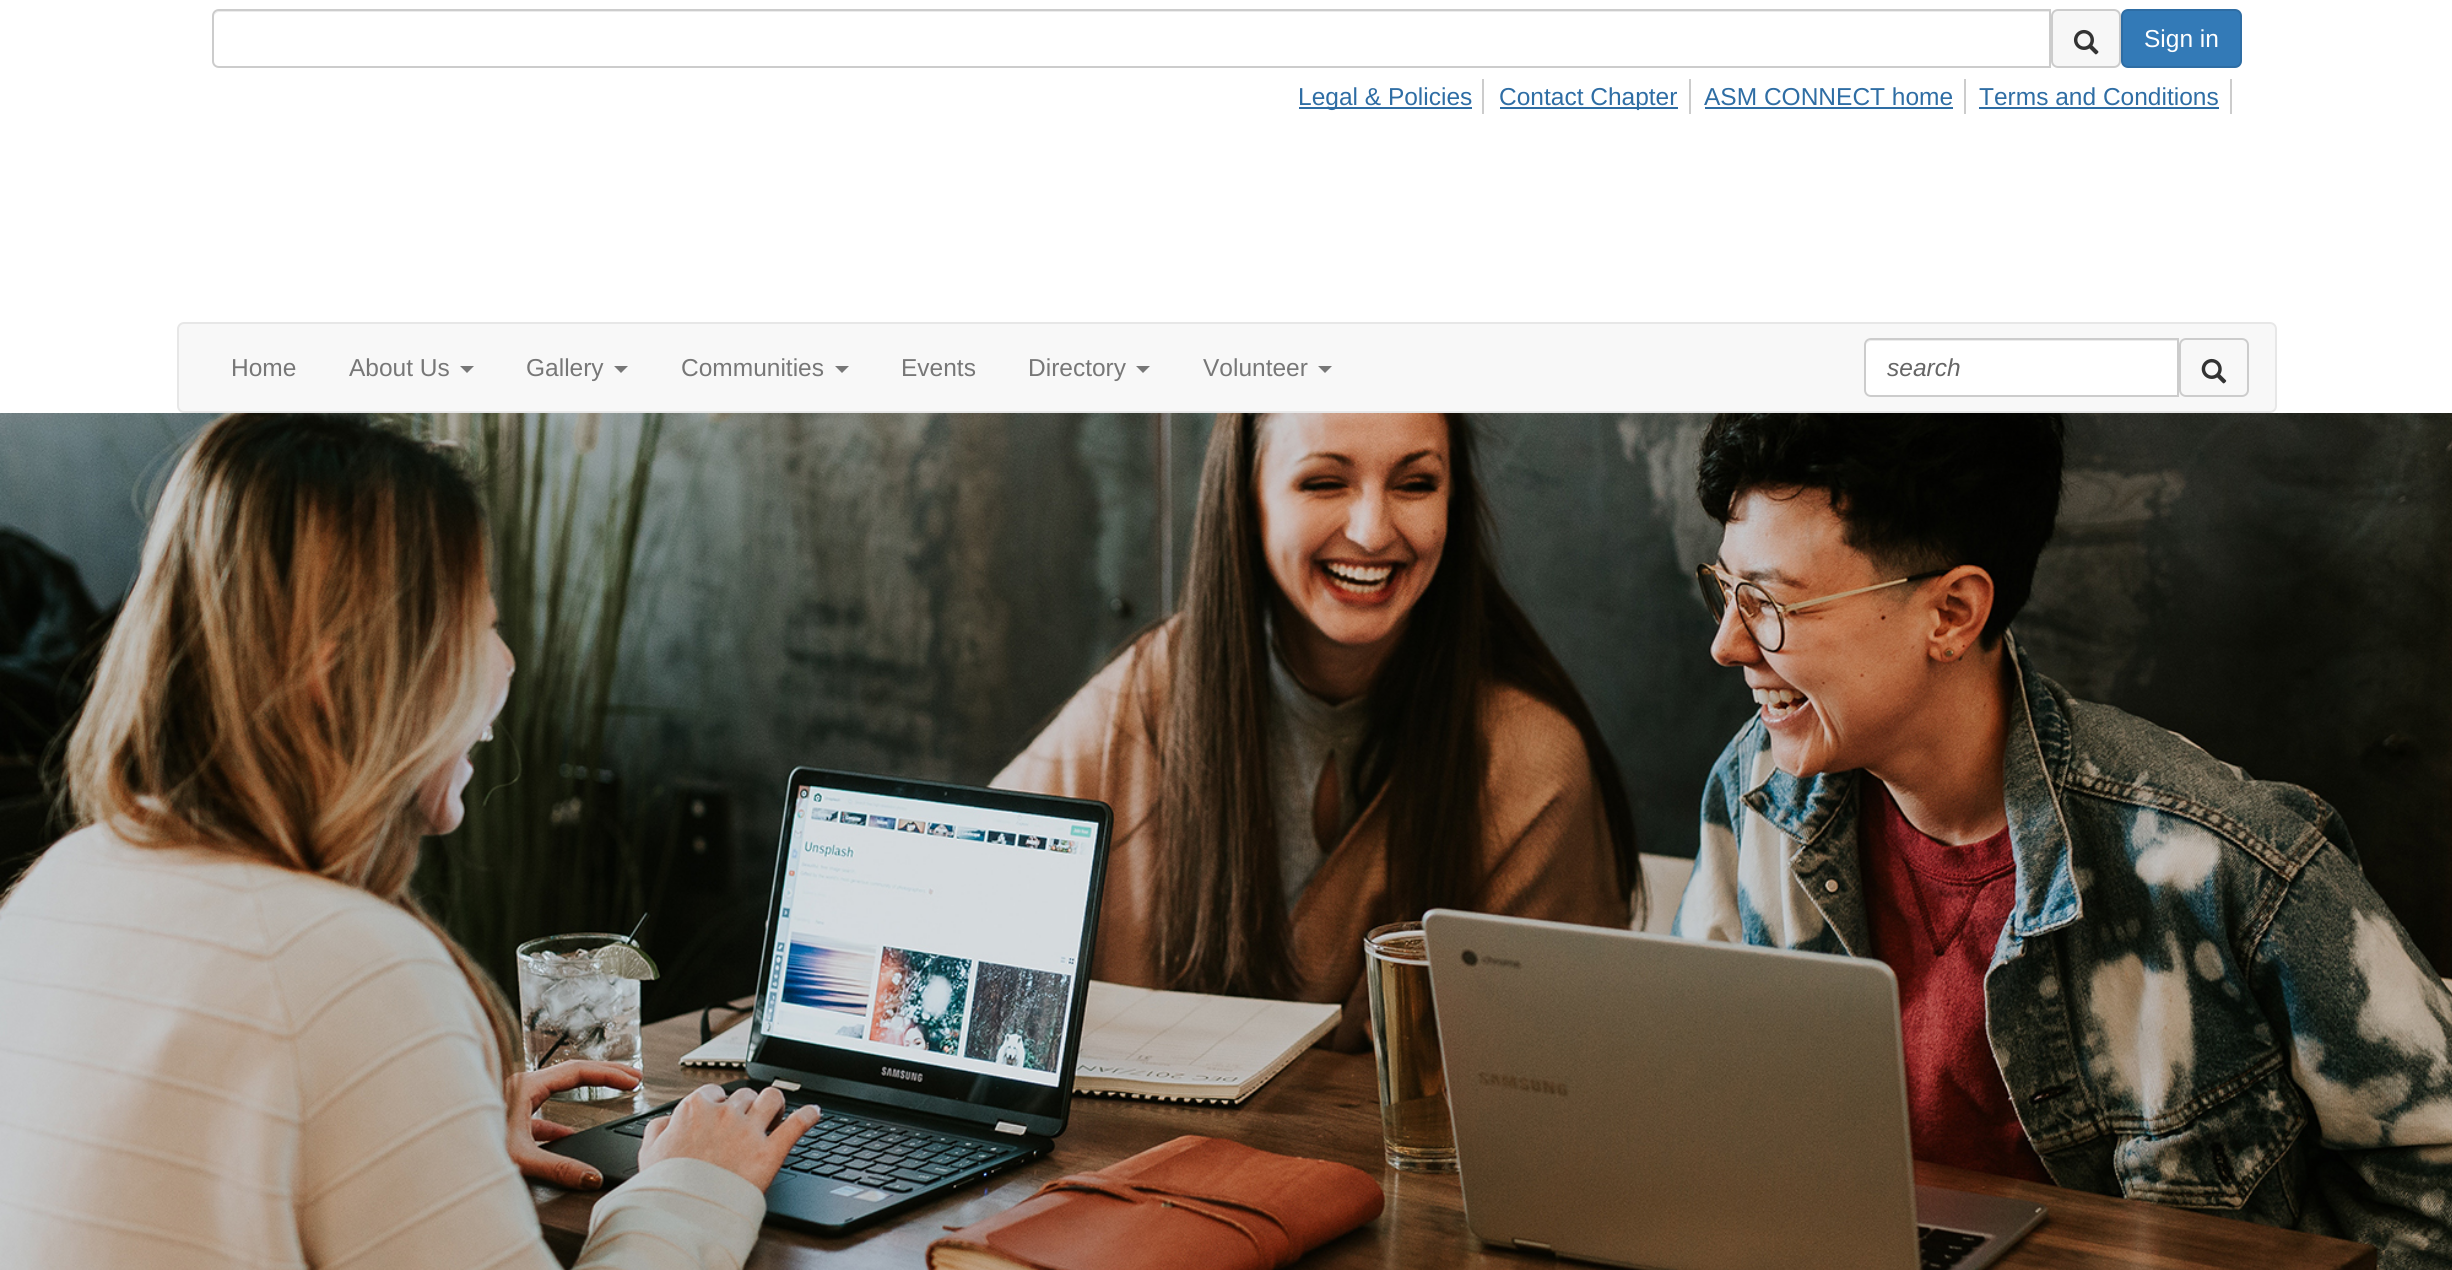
#include <cairo.h>
#include <math.h>
#include <stddef.h>


static void ink(cairo_t *ctx, unsigned color) {
    cairo_set_source_rgb(ctx, (color >> 16) / 255.0, (color >> 8 & 255) / 255.0, (color & 255) / 255.0);
}

static void round_path(cairo_t *ctx, double x, double y, double w, double h, double r) {
    cairo_new_sub_path(ctx);
    cairo_arc(ctx, x + w - r, y + h - r, r, 0, M_PI / 2);
    cairo_arc(ctx, x + r, y + h - r, r, M_PI / 2, M_PI);
    cairo_arc(ctx, x + r, y + r, r, M_PI, 1.5 * M_PI);
    cairo_arc(ctx, x + w - r, y + r, r, 1.5 * M_PI, 2 * M_PI);
    cairo_close_path(ctx);
}

static void paste(cairo_t *ctx, const char *path, double x, double y, double w, double h) {
    cairo_surface_t *image = cairo_image_surface_create_from_png(path);
    cairo_save(ctx);
    cairo_set_source_surface(ctx, image, x, y);
    cairo_rectangle(ctx, x, y, w, h);
    cairo_fill(ctx);
    cairo_restore(ctx);
    cairo_surface_destroy(image);
}

int main(void) {
    cairo_surface_t *surface = cairo_image_surface_create(CAIRO_FORMAT_RGB24, 2452, 1270);
    cairo_t *ctx = cairo_create(surface);
    cairo_font_options_t *options = cairo_font_options_create();
    cairo_font_options_set_hint_metrics(options, CAIRO_HINT_METRICS_OFF);
    cairo_font_options_set_hint_style(options, CAIRO_HINT_STYLE_NONE);
    cairo_set_font_options(ctx, options);
    cairo_set_miter_limit(ctx, 4);
    ink(ctx, 0xFFFFFF);
    cairo_paint(ctx);
    ink(ctx, 0xECECEC);
    cairo_new_path(ctx);
    cairo_move_to(ctx, 219, 12);
    cairo_line_to(ctx, 2049, 12);
    cairo_line_to(ctx, 2049, 11);
    cairo_line_to(ctx, 219, 11);
    cairo_curve_to(ctx, 215, 11, 214, 15, 214, 18);
    cairo_curve_to(ctx, 214, 15, 216, 12, 219, 12);
    cairo_close_path(ctx);
    cairo_fill(ctx);
    cairo_new_path(ctx);
    cairo_move_to(ctx, 219, 10);
    cairo_line_to(ctx, 2050, 10);
    cairo_line_to(ctx, 2050, 67);
    cairo_line_to(ctx, 219, 67);
    cairo_curve_to(ctx, 215.5, 67, 213, 64.5, 213, 61);
    cairo_line_to(ctx, 213, 16);
    cairo_curve_to(ctx, 213, 12.5, 215.5, 10, 219, 10);
    cairo_close_path(ctx);
    ink(ctx, 0xCCCCCC);
    cairo_stroke(ctx);
    ink(ctx, 0xF7F7F7);
    round_path(ctx, 2052, 10, 68, 57, 6);
    cairo_fill_preserve(ctx);
    ink(ctx, 0xCCCCCC);
    cairo_stroke(ctx);
    paste(ctx, "media/1.png", 2073, 29, 26, 26);
    ink(ctx, 0x337AB7);
    round_path(ctx, 2122, 10, 119, 57, 6);
    cairo_fill_preserve(ctx);
    ink(ctx, 0x2E6DA4);
    cairo_stroke(ctx);
    cairo_select_font_face(ctx, "Liberation Sans", CAIRO_FONT_SLANT_NORMAL, CAIRO_FONT_WEIGHT_NORMAL);
    cairo_set_font_size(ctx, 24.5);
    ink(ctx, 0xFFFFFF);
    cairo_move_to(ctx, 2144, 47);
    cairo_show_text(ctx, "Sign in");
    ink(ctx, 0xCCCCCC);
    cairo_rectangle(ctx, 1482, 79, 2, 35);
    cairo_fill(ctx);
    ink(ctx, 0x2E6DA4);
    cairo_rectangle(ctx, 1299, 107, 173, 2);
    cairo_fill(ctx);
    cairo_move_to(ctx, 1298, 105);
    cairo_show_text(ctx, "Legal & Policies");
    ink(ctx, 0xCCCCCC);
    cairo_rectangle(ctx, 1689, 79, 2, 35);
    cairo_fill(ctx);
    ink(ctx, 0x2E6DA4);
    cairo_rectangle(ctx, 1500, 107, 178, 2);
    cairo_fill(ctx);
    cairo_move_to(ctx, 1499, 105);
    cairo_show_text(ctx, "Contact Chapter");
    ink(ctx, 0xCCCCCC);
    cairo_rectangle(ctx, 1964, 79, 2, 35);
    cairo_fill(ctx);
    ink(ctx, 0x2E6DA4);
    cairo_move_to(ctx, 1704, 105);
    cairo_show_text(ctx, "ASM CONNECT home");
    cairo_rectangle(ctx, 1705, 107, 248, 2);
    cairo_fill(ctx);
    ink(ctx, 0xCCCCCC);
    cairo_rectangle(ctx, 2230, 79, 2, 35);
    cairo_fill(ctx);
    ink(ctx, 0x2E6DA4);
    cairo_move_to(ctx, 1979, 105);
    cairo_show_text(ctx, "Terms and Conditions");
    cairo_rectangle(ctx, 1979, 107, 240, 2);
    cairo_fill(ctx);
    ink(ctx, 0xF8F8F8);
    round_path(ctx, 178, 323, 2098, 89, 6);
    cairo_fill_preserve(ctx);
    ink(ctx, 0xE7E7E7);
    cairo_stroke(ctx);
    ink(ctx, 0x777777);
    cairo_move_to(ctx, 231, 376);
    cairo_show_text(ctx, "Home");
    cairo_move_to(ctx, 349, 376);
    cairo_show_text(ctx, "About Us");
    cairo_new_path(ctx);
    cairo_move_to(ctx, 460, 366);
    cairo_line_to(ctx, 474, 366);
    cairo_line_to(ctx, 467, 373);
    cairo_close_path(ctx);
    cairo_fill(ctx);
    cairo_move_to(ctx, 526, 376);
    cairo_show_text(ctx, "Gallery");
    cairo_new_path(ctx);
    cairo_move_to(ctx, 614, 366);
    cairo_line_to(ctx, 628, 366);
    cairo_line_to(ctx, 621, 373);
    cairo_close_path(ctx);
    cairo_fill(ctx);
    cairo_move_to(ctx, 681, 376);
    cairo_show_text(ctx, "Communities");
    cairo_new_path(ctx);
    cairo_move_to(ctx, 835, 366);
    cairo_line_to(ctx, 849, 366);
    cairo_line_to(ctx, 842, 373);
    cairo_close_path(ctx);
    cairo_fill(ctx);
    cairo_move_to(ctx, 901, 376);
    cairo_show_text(ctx, "Events");
    cairo_move_to(ctx, 1028, 376);
    cairo_show_text(ctx, "Directory");
    cairo_new_path(ctx);
    cairo_move_to(ctx, 1136, 366);
    cairo_line_to(ctx, 1150, 366);
    cairo_line_to(ctx, 1143, 373);
    cairo_close_path(ctx);
    cairo_fill(ctx);
    cairo_move_to(ctx, 1203, 376);
    cairo_show_text(ctx, "Volunteer");
    cairo_new_path(ctx);
    cairo_move_to(ctx, 1318, 366);
    cairo_line_to(ctx, 1332, 366);
    cairo_line_to(ctx, 1325, 373);
    cairo_close_path(ctx);
    cairo_fill(ctx);
    ink(ctx, 0xFFFFFF);
    cairo_new_path(ctx);
    cairo_move_to(ctx, 1871, 338);
    cairo_line_to(ctx, 2179, 338);
    cairo_line_to(ctx, 2179, 397);
    cairo_line_to(ctx, 1871, 397);
    cairo_curve_to(ctx, 1867, 397, 1864, 394, 1864, 390);
    cairo_line_to(ctx, 1864, 345);
    cairo_curve_to(ctx, 1864, 341, 1867, 338, 1871, 338);
    cairo_close_path(ctx);
    cairo_fill(ctx);
    ink(ctx, 0xECECEC);
    cairo_new_path(ctx);
    cairo_move_to(ctx, 1871, 341);
    cairo_line_to(ctx, 2177, 341);
    cairo_line_to(ctx, 2177, 340);
    cairo_line_to(ctx, 1871, 340);
    cairo_curve_to(ctx, 1868, 340, 1866, 343, 1866, 346);
    cairo_curve_to(ctx, 1866, 344, 1868, 341, 1871, 341);
    cairo_close_path(ctx);
    cairo_fill(ctx);
    cairo_new_path(ctx);
    cairo_move_to(ctx, 1871, 339);
    cairo_line_to(ctx, 2178, 339);
    cairo_line_to(ctx, 2178, 396);
    cairo_line_to(ctx, 1871, 396);
    cairo_curve_to(ctx, 1867.5, 396, 1865, 393.5, 1865, 390);
    cairo_line_to(ctx, 1865, 345);
    cairo_curve_to(ctx, 1865, 341.5, 1867.5, 339, 1871, 339);
    cairo_close_path(ctx);
    ink(ctx, 0xCCCCCC);
    cairo_stroke(ctx);
    cairo_select_font_face(ctx, "Liberation Sans", CAIRO_FONT_SLANT_ITALIC, CAIRO_FONT_WEIGHT_NORMAL);
    ink(ctx, 0x666666);
    cairo_move_to(ctx, 1887, 376);
    cairo_show_text(ctx, "search");
    round_path(ctx, 2180, 339, 68, 57, 6);
    ink(ctx, 0xCCCCCC);
    cairo_stroke(ctx);
    paste(ctx, "media/2.png", 2201, 358, 26, 26);
    paste(ctx, "media/3.png", 0, 413, 2452, 857);
    cairo_surface_write_to_png(surface, "image.png");
    cairo_font_options_destroy(options);
    cairo_destroy(ctx);
    cairo_surface_destroy(surface);
    return 0;
}
